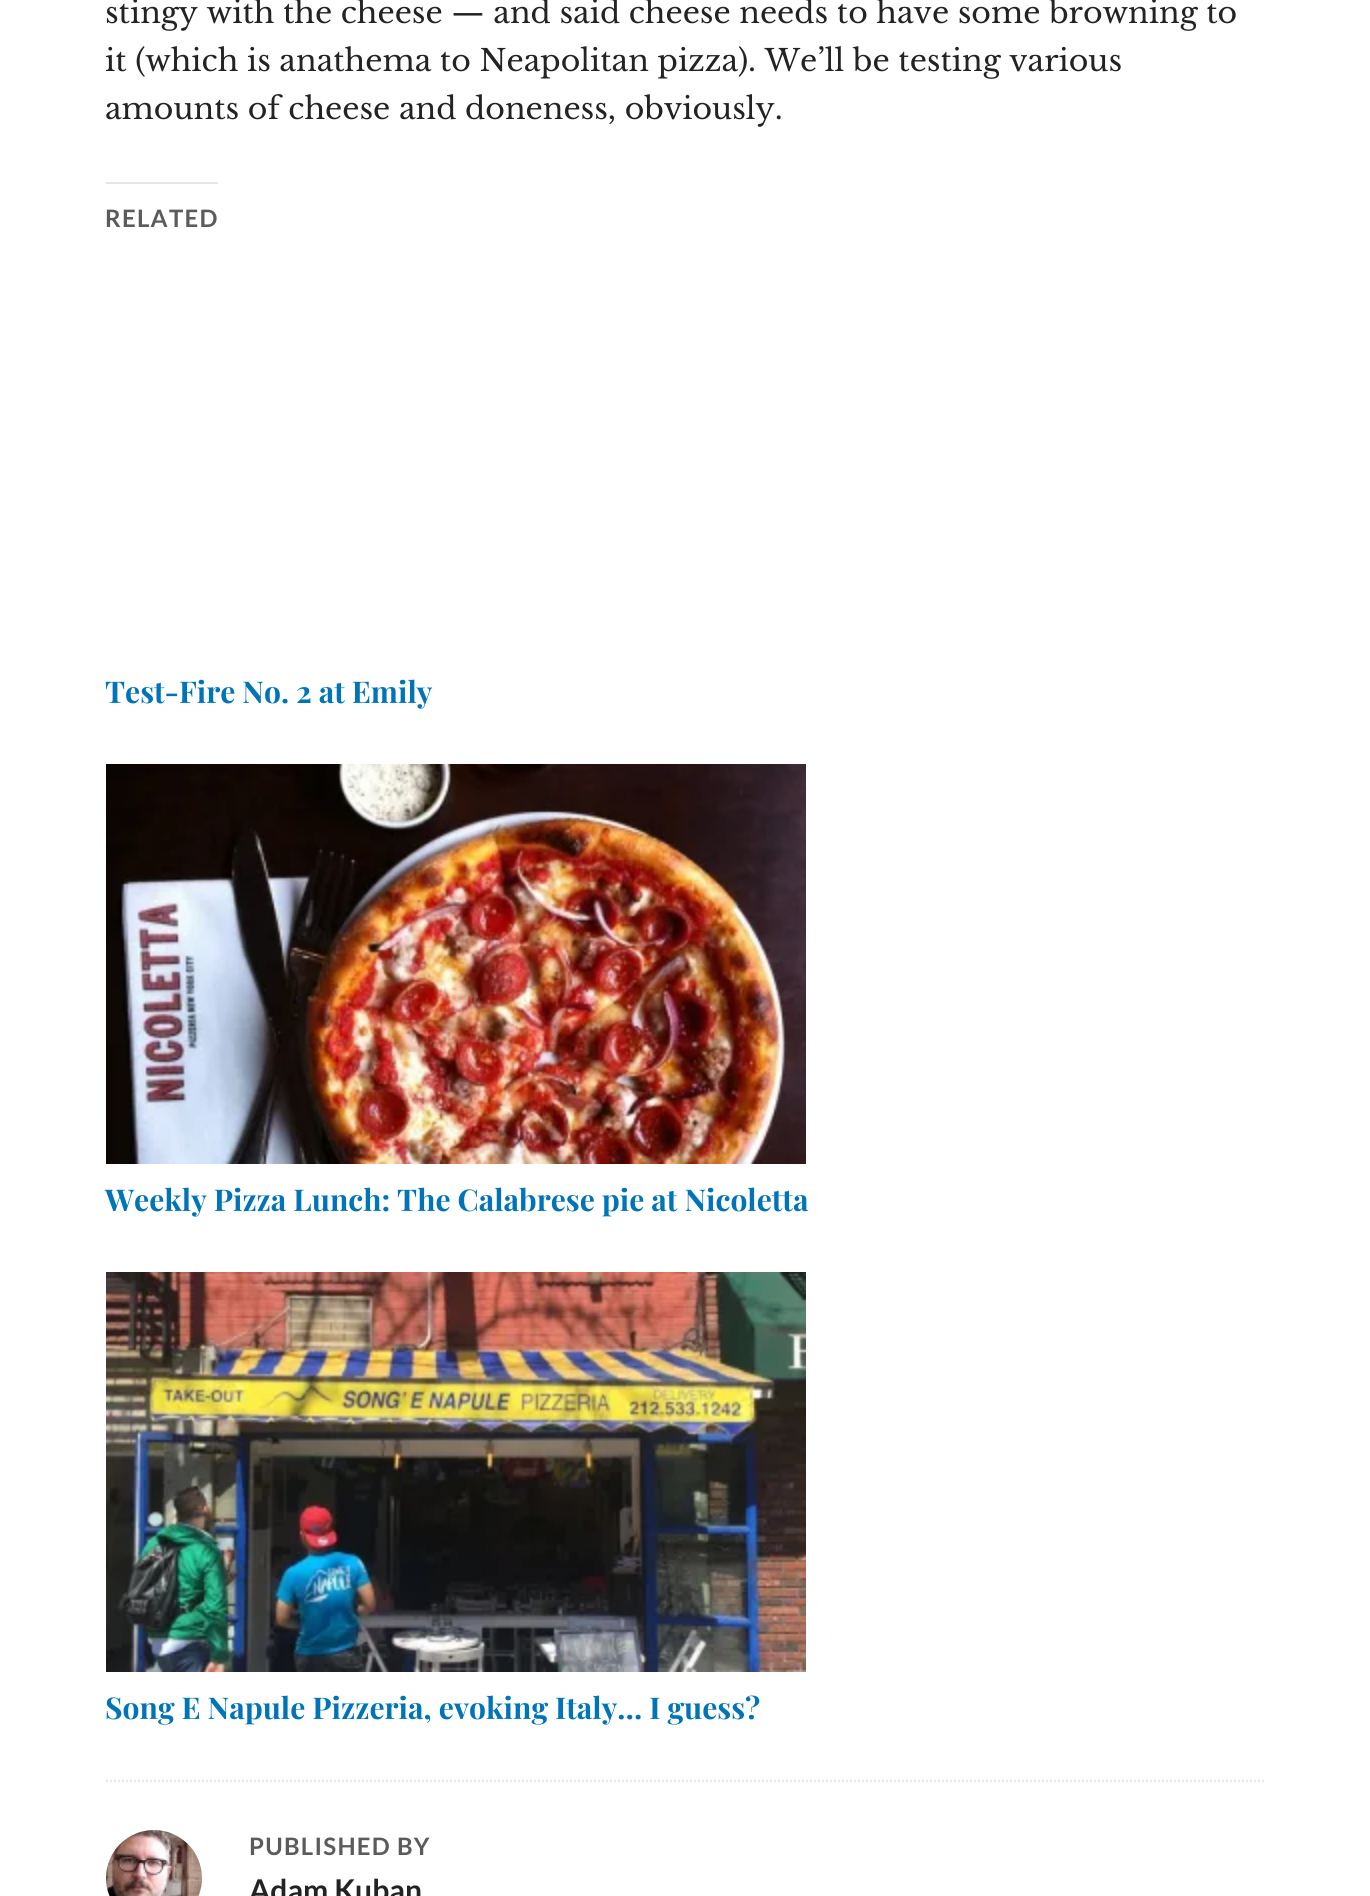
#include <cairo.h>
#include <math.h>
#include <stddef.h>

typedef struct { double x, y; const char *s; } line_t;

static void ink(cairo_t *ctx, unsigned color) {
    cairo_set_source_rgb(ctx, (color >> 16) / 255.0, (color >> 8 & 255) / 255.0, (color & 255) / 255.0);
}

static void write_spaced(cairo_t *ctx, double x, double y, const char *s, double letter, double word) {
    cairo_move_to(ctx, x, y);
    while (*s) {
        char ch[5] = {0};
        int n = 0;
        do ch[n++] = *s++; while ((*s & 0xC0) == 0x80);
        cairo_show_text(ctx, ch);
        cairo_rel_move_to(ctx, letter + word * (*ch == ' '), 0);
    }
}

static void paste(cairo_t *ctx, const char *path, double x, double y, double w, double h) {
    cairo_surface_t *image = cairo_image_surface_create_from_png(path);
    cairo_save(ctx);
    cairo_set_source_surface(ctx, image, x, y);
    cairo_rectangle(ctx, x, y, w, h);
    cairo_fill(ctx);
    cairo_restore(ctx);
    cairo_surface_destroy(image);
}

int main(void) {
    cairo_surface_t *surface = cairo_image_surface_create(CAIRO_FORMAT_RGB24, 1370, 1896);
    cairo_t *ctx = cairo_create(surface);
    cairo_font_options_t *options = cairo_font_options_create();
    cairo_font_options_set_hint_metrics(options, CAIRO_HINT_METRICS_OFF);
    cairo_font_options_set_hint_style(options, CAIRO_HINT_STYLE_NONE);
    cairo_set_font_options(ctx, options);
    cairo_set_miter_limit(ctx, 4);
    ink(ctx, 0xFFFFFF);
    cairo_paint(ctx);
    cairo_select_font_face(ctx, "Libre Baskerville", CAIRO_FONT_SLANT_NORMAL, CAIRO_FONT_WEIGHT_NORMAL);
    cairo_set_font_size(ctx, 30);
    ink(ctx, 0x232323);
    {
        static const line_t items[] = {
            {105, 23, "stingy with the cheese — and said cheese needs to have some browning to"},
            {105, 71, "it (which is anathema to Neapolitan pizza). We’ll be testing various"},
            {105, 119, "amounts of cheese and doneness, obviously."},
        };
        for (size_t i = 0; i < sizeof items / sizeof *items; i++) {
            cairo_move_to(ctx, items[i].x, items[i].y);
            cairo_show_text(ctx, items[i].s);
        }
    }
    ink(ctx, 0xE6E6E6);
    cairo_rectangle(ctx, 106, 182, 112, 2);
    cairo_fill(ctx);
    cairo_select_font_face(ctx, "Lato", CAIRO_FONT_SLANT_NORMAL, CAIRO_FONT_WEIGHT_BOLD);
    cairo_set_font_size(ctx, 24);
    ink(ctx, 0x5B5B5B);
    write_spaced(ctx, 105, 227, "RELATED", 1.25, 0);
    cairo_select_font_face(ctx, "Playfair Display", CAIRO_FONT_SLANT_NORMAL, CAIRO_FONT_WEIGHT_BOLD);
    cairo_set_font_size(ctx, 30);
    ink(ctx, 0x0074B8);
    cairo_move_to(ctx, 105, 703);
    cairo_show_text(ctx, "Test-Fire No. 2 at Emily");
    paste(ctx, "media/1.png", 106, 764, 700, 400);
    cairo_move_to(ctx, 105, 1211);
    cairo_show_text(ctx, "Weekly Pizza Lunch: The Calabrese pie at Nicoletta");
    paste(ctx, "media/2.png", 106, 1272, 700, 400);
    cairo_move_to(ctx, 105, 1719);
    cairo_show_text(ctx, "Song E Napule Pizzeria, evoking Italy… I guess?");
    cairo_new_path(ctx);
    cairo_move_to(ctx, 106, 1781);
    cairo_line_to(ctx, 1264, 1781);
    ink(ctx, 0xE6E6E6);
    cairo_set_dash(ctx, (double[]){2, 2}, 2, 0);
    cairo_stroke(ctx);
    paste(ctx, "media/3.png", 106, 1830, 96, 66);
    cairo_select_font_face(ctx, "Lato", CAIRO_FONT_SLANT_NORMAL, CAIRO_FONT_WEIGHT_BOLD);
    cairo_set_font_size(ctx, 24);
    ink(ctx, 0x5B5B5B);
    write_spaced(ctx, 249, 1855, "PUBLISHED BY", 1.25, 0);
    cairo_set_font_size(ctx, 30);
    ink(ctx, 0x232323);
    cairo_move_to(ctx, 249, 1901);
    cairo_show_text(ctx, "Adam Kuban");
    cairo_surface_write_to_png(surface, "image.png");
    cairo_font_options_destroy(options);
    cairo_destroy(ctx);
    cairo_surface_destroy(surface);
    return 0;
}
